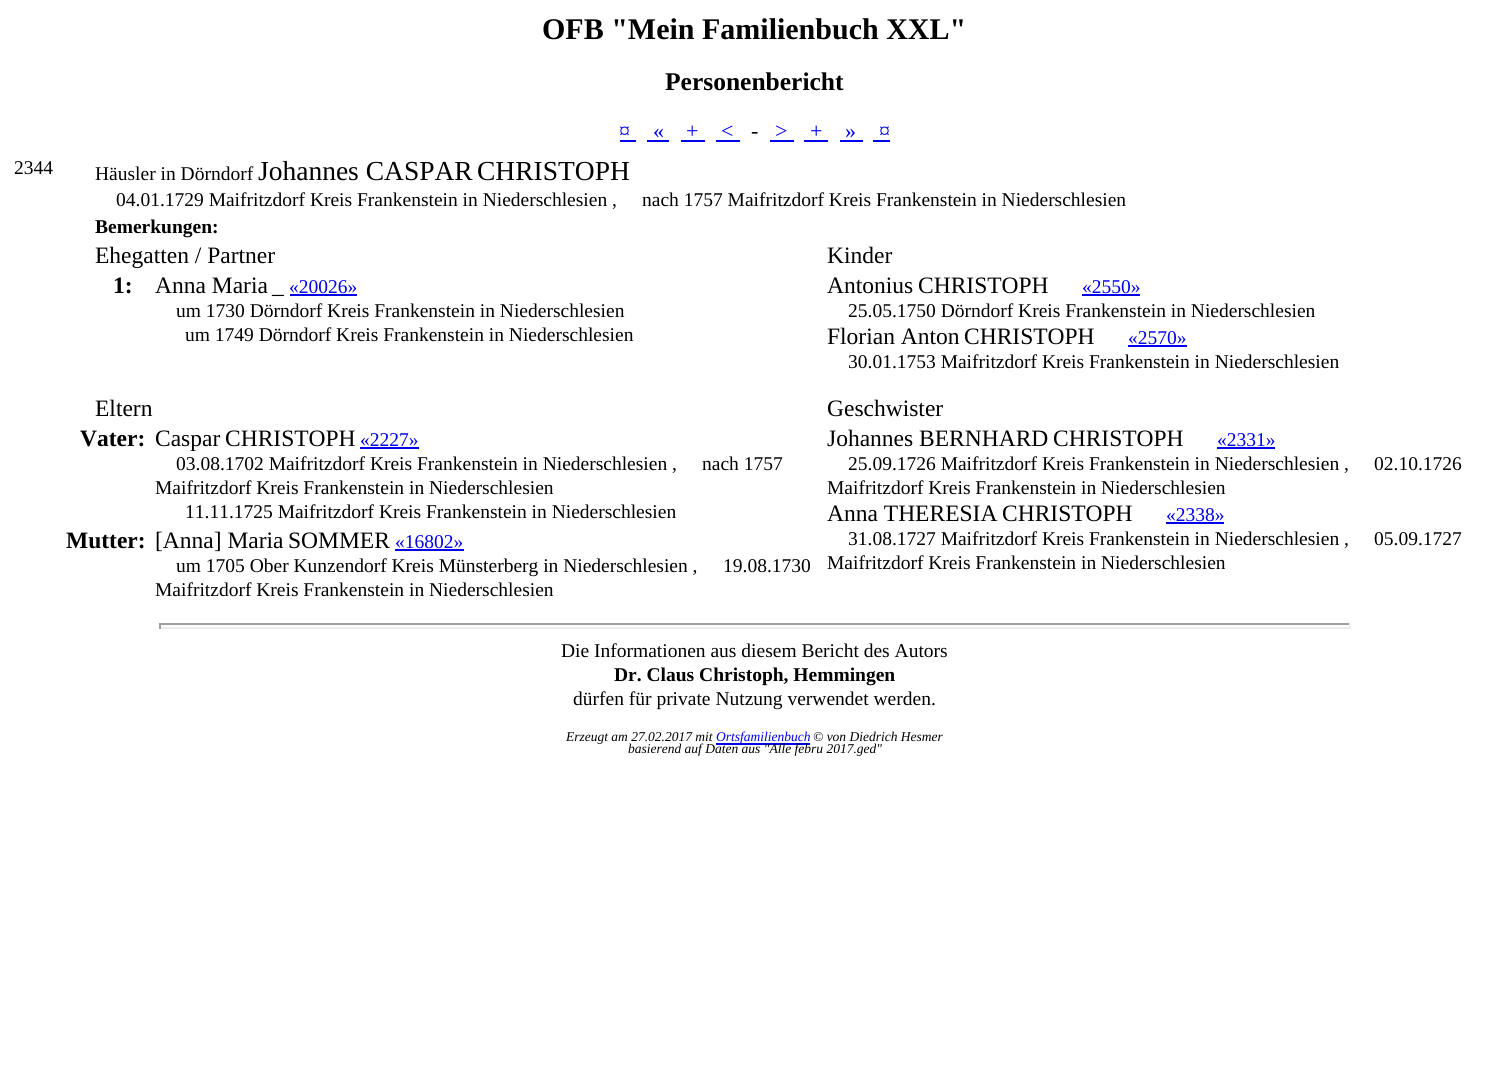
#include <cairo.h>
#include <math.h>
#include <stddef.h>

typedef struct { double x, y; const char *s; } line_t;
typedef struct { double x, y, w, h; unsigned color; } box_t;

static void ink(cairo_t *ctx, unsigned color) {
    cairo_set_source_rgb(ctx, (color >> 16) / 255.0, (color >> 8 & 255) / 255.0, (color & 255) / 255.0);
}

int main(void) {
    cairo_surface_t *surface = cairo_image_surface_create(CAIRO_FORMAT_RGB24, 1509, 1065);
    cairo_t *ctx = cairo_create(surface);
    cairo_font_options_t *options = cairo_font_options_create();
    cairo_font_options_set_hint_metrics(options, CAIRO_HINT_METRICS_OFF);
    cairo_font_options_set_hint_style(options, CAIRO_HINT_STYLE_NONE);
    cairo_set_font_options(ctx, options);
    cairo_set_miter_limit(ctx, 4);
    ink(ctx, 0xFFFFFF);
    cairo_paint(ctx);
    cairo_select_font_face(ctx, "Liberation Serif", CAIRO_FONT_SLANT_NORMAL, CAIRO_FONT_WEIGHT_BOLD);
    cairo_set_font_size(ctx, 30);
    ink(ctx, 0x000000);
    cairo_move_to(ctx, 542, 39);
    cairo_show_text(ctx, "OFB \"Mein Familienbuch XXL\"");
    cairo_set_font_size(ctx, 25.5);
    cairo_move_to(ctx, 665, 90);
    cairo_show_text(ctx, "Personenbericht");
    cairo_select_font_face(ctx, "Liberation Serif", CAIRO_FONT_SLANT_NORMAL, CAIRO_FONT_WEIGHT_NORMAL);
    cairo_set_font_size(ctx, 22);
    ink(ctx, 0x0000EE);
    cairo_move_to(ctx, 619, 138);
    cairo_show_text(ctx, "¤");
    cairo_rectangle(ctx, 620, 140, 16, 2);
    cairo_fill(ctx);
    cairo_move_to(ctx, 653, 138);
    cairo_show_text(ctx, "«");
    cairo_rectangle(ctx, 647, 140, 22, 2);
    cairo_fill(ctx);
    cairo_move_to(ctx, 686, 138);
    cairo_show_text(ctx, "+");
    cairo_rectangle(ctx, 681, 140, 24, 2);
    cairo_fill(ctx);
    cairo_move_to(ctx, 721, 138);
    cairo_show_text(ctx, "<");
    cairo_rectangle(ctx, 716, 140, 24, 2);
    cairo_fill(ctx);
    ink(ctx, 0x000000);
    cairo_move_to(ctx, 751, 138);
    cairo_show_text(ctx, "-");
    ink(ctx, 0x0000EE);
    cairo_move_to(ctx, 775, 138);
    cairo_show_text(ctx, ">");
    cairo_rectangle(ctx, 770, 140, 24, 2);
    cairo_fill(ctx);
    cairo_move_to(ctx, 810, 138);
    cairo_show_text(ctx, "+");
    cairo_rectangle(ctx, 804, 140, 24, 2);
    cairo_fill(ctx);
    cairo_move_to(ctx, 845, 138);
    cairo_show_text(ctx, "»");
    cairo_rectangle(ctx, 840, 140, 23, 2);
    cairo_fill(ctx);
    cairo_move_to(ctx, 879, 138);
    cairo_show_text(ctx, "¤");
    cairo_rectangle(ctx, 873, 140, 17, 2);
    cairo_fill(ctx);
    cairo_set_font_size(ctx, 19.5);
    ink(ctx, 0x000000);
    cairo_move_to(ctx, 14, 174);
    cairo_show_text(ctx, "2344");
    cairo_move_to(ctx, 95, 180);
    cairo_show_text(ctx, "Häusler in Dörndorf");
    cairo_set_font_size(ctx, 27.5);
    cairo_move_to(ctx, 258, 180);
    cairo_show_text(ctx, "Johannes CASPAR");
    cairo_move_to(ctx, 477, 180);
    cairo_show_text(ctx, "CHRISTOPH");
    cairo_set_font_size(ctx, 19.5);
    cairo_move_to(ctx, 116, 206);
    cairo_show_text(ctx, "04.01.1729 Maifritzdorf Kreis Frankenstein in Niederschlesien ,");
    cairo_move_to(ctx, 642, 206);
    cairo_show_text(ctx, "nach 1757 Maifritzdorf Kreis Frankenstein in Niederschlesien");
    cairo_select_font_face(ctx, "Liberation Serif", CAIRO_FONT_SLANT_NORMAL, CAIRO_FONT_WEIGHT_BOLD);
    cairo_move_to(ctx, 95, 233);
    cairo_show_text(ctx, "Bemerkungen:");
    cairo_select_font_face(ctx, "Liberation Serif", CAIRO_FONT_SLANT_NORMAL, CAIRO_FONT_WEIGHT_NORMAL);
    cairo_set_font_size(ctx, 23.5);
    cairo_move_to(ctx, 95, 263);
    cairo_show_text(ctx, "Ehegatten / Partner");
    cairo_move_to(ctx, 827, 263);
    cairo_show_text(ctx, "Kinder");
    cairo_select_font_face(ctx, "Liberation Serif", CAIRO_FONT_SLANT_NORMAL, CAIRO_FONT_WEIGHT_BOLD);
    cairo_move_to(ctx, 113, 293);
    cairo_show_text(ctx, "1:");
    cairo_select_font_face(ctx, "Liberation Serif", CAIRO_FONT_SLANT_NORMAL, CAIRO_FONT_WEIGHT_NORMAL);
    cairo_move_to(ctx, 155, 293);
    cairo_show_text(ctx, "Anna Maria");
    cairo_set_font_size(ctx, 19.5);
    ink(ctx, 0x0000EE);
    cairo_move_to(ctx, 289, 293);
    cairo_show_text(ctx, "«20026»");
    cairo_rectangle(ctx, 290, 294, 67, 2);
    cairo_fill(ctx);
    cairo_set_font_size(ctx, 23.5);
    ink(ctx, 0x000000);
    cairo_move_to(ctx, 272, 293);
    cairo_show_text(ctx, "_");
    cairo_set_font_size(ctx, 19.5);
    cairo_move_to(ctx, 176, 317);
    cairo_show_text(ctx, "um 1730 Dörndorf Kreis Frankenstein in Niederschlesien");
    cairo_move_to(ctx, 185, 341);
    cairo_show_text(ctx, "um 1749 Dörndorf Kreis Frankenstein in Niederschlesien");
    cairo_set_font_size(ctx, 23.5);
    cairo_move_to(ctx, 827, 293);
    cairo_show_text(ctx, "Antonius");
    cairo_move_to(ctx, 918, 293);
    cairo_show_text(ctx, "CHRISTOPH");
    cairo_set_font_size(ctx, 19.5);
    ink(ctx, 0x0000EE);
    cairo_move_to(ctx, 1082, 293);
    cairo_show_text(ctx, "«2550»");
    cairo_rectangle(ctx, 1082, 294, 58, 2);
    cairo_fill(ctx);
    ink(ctx, 0x000000);
    cairo_move_to(ctx, 848, 317);
    cairo_show_text(ctx, "25.05.1750 Dörndorf Kreis Frankenstein in Niederschlesien");
    cairo_set_font_size(ctx, 23.5);
    cairo_move_to(ctx, 827, 344);
    cairo_show_text(ctx, "Florian Anton");
    cairo_move_to(ctx, 964, 344);
    cairo_show_text(ctx, "CHRISTOPH");
    cairo_set_font_size(ctx, 19.5);
    ink(ctx, 0x0000EE);
    cairo_move_to(ctx, 1128, 344);
    cairo_show_text(ctx, "«2570»");
    cairo_rectangle(ctx, 1128, 345, 59, 2);
    cairo_fill(ctx);
    ink(ctx, 0x000000);
    cairo_move_to(ctx, 848, 368);
    cairo_show_text(ctx, "30.01.1753 Maifritzdorf Kreis Frankenstein in Niederschlesien");
    cairo_set_font_size(ctx, 23.5);
    cairo_move_to(ctx, 95, 416);
    cairo_show_text(ctx, "Eltern");
    cairo_move_to(ctx, 827, 416);
    cairo_show_text(ctx, "Geschwister");
    cairo_select_font_face(ctx, "Liberation Serif", CAIRO_FONT_SLANT_NORMAL, CAIRO_FONT_WEIGHT_BOLD);
    cairo_move_to(ctx, 80, 446);
    cairo_show_text(ctx, "Vater:");
    cairo_select_font_face(ctx, "Liberation Serif", CAIRO_FONT_SLANT_NORMAL, CAIRO_FONT_WEIGHT_NORMAL);
    cairo_move_to(ctx, 155, 446);
    cairo_show_text(ctx, "Caspar");
    cairo_move_to(ctx, 225, 446);
    cairo_show_text(ctx, "CHRISTOPH");
    cairo_set_font_size(ctx, 19.5);
    ink(ctx, 0x0000EE);
    cairo_move_to(ctx, 360, 446);
    cairo_show_text(ctx, "«2227»");
    cairo_rectangle(ctx, 360, 447, 59, 2);
    cairo_fill(ctx);
    ink(ctx, 0x000000);
    {
        static const line_t items[] = {
            {176, 470, "03.08.1702 Maifritzdorf Kreis Frankenstein in Niederschlesien ,"},
            {702, 470, "nach 1757"},
            {155, 494, "Maifritzdorf Kreis Frankenstein in Niederschlesien"},
            {185, 518, "11.11.1725 Maifritzdorf Kreis Frankenstein in Niederschlesien"},
        };
        for (size_t i = 0; i < sizeof items / sizeof *items; i++) {
            cairo_move_to(ctx, items[i].x, items[i].y);
            cairo_show_text(ctx, items[i].s);
        }
    }
    cairo_set_font_size(ctx, 23.5);
    cairo_move_to(ctx, 827, 446);
    cairo_show_text(ctx, "Johannes BERNHARD");
    cairo_move_to(ctx, 1053, 446);
    cairo_show_text(ctx, "CHRISTOPH");
    cairo_set_font_size(ctx, 19.5);
    ink(ctx, 0x0000EE);
    cairo_move_to(ctx, 1217, 446);
    cairo_show_text(ctx, "«2331»");
    cairo_rectangle(ctx, 1217, 447, 58, 2);
    cairo_fill(ctx);
    ink(ctx, 0x000000);
    {
        static const line_t items[] = {
            {848, 470, "25.09.1726 Maifritzdorf Kreis Frankenstein in Niederschlesien ,"},
            {1374, 470, "02.10.1726"},
            {827, 494, "Maifritzdorf Kreis Frankenstein in Niederschlesien"},
        };
        for (size_t i = 0; i < sizeof items / sizeof *items; i++) {
            cairo_move_to(ctx, items[i].x, items[i].y);
            cairo_show_text(ctx, items[i].s);
        }
    }
    cairo_set_font_size(ctx, 23.5);
    cairo_move_to(ctx, 827, 521);
    cairo_show_text(ctx, "Anna THERESIA");
    cairo_move_to(ctx, 1002, 521);
    cairo_show_text(ctx, "CHRISTOPH");
    cairo_set_font_size(ctx, 19.5);
    ink(ctx, 0x0000EE);
    cairo_move_to(ctx, 1166, 521);
    cairo_show_text(ctx, "«2338»");
    cairo_rectangle(ctx, 1166, 522, 58, 2);
    cairo_fill(ctx);
    ink(ctx, 0x000000);
    {
        static const line_t items[] = {
            {848, 545, "31.08.1727 Maifritzdorf Kreis Frankenstein in Niederschlesien ,"},
            {1374, 545, "05.09.1727"},
            {827, 569, "Maifritzdorf Kreis Frankenstein in Niederschlesien"},
        };
        for (size_t i = 0; i < sizeof items / sizeof *items; i++) {
            cairo_move_to(ctx, items[i].x, items[i].y);
            cairo_show_text(ctx, items[i].s);
        }
    }
    cairo_select_font_face(ctx, "Liberation Serif", CAIRO_FONT_SLANT_NORMAL, CAIRO_FONT_WEIGHT_BOLD);
    cairo_set_font_size(ctx, 23.5);
    cairo_move_to(ctx, 66, 548);
    cairo_show_text(ctx, "Mutter:");
    cairo_select_font_face(ctx, "Liberation Serif", CAIRO_FONT_SLANT_NORMAL, CAIRO_FONT_WEIGHT_NORMAL);
    cairo_move_to(ctx, 155, 548);
    cairo_show_text(ctx, "[Anna] Maria");
    cairo_move_to(ctx, 288, 548);
    cairo_show_text(ctx, "SOMMER");
    cairo_set_font_size(ctx, 19.5);
    ink(ctx, 0x0000EE);
    cairo_move_to(ctx, 395, 548);
    cairo_show_text(ctx, "«16802»");
    cairo_rectangle(ctx, 395, 549, 69, 2);
    cairo_fill(ctx);
    ink(ctx, 0x000000);
    {
        static const line_t items[] = {
            {176, 572, "um 1705 Ober Kunzendorf Kreis Münsterberg in Niederschlesien ,"},
            {723, 572, "19.08.1730"},
            {155, 596, "Maifritzdorf Kreis Frankenstein in Niederschlesien"},
        };
        for (size_t i = 0; i < sizeof items / sizeof *items; i++) {
            cairo_move_to(ctx, items[i].x, items[i].y);
            cairo_show_text(ctx, items[i].s);
        }
    }
    {
        static const box_t items[] = {
            {159, 623, 1191, 2, 0x9F9F9F},
            {1349, 623, 2, 6, 0xEEEEEE},
            {159, 627, 1191, 2, 0xEEEEEE},
            {159, 623, 2, 6, 0x9F9F9F},
        };
        for (size_t i = 0; i < sizeof items / sizeof *items; i++) {
            ink(ctx, items[i].color);
            cairo_rectangle(ctx, items[i].x, items[i].y, items[i].w, items[i].h);
            cairo_fill(ctx);
        }
    }
    ink(ctx, 0x000000);
    cairo_move_to(ctx, 561, 657);
    cairo_show_text(ctx, "Die Informationen aus diesem Bericht des Autors");
    cairo_select_font_face(ctx, "Liberation Serif", CAIRO_FONT_SLANT_NORMAL, CAIRO_FONT_WEIGHT_BOLD);
    cairo_move_to(ctx, 614, 681);
    cairo_show_text(ctx, "Dr. Claus Christoph, Hemmingen");
    cairo_select_font_face(ctx, "Liberation Serif", CAIRO_FONT_SLANT_NORMAL, CAIRO_FONT_WEIGHT_NORMAL);
    cairo_move_to(ctx, 573, 705);
    cairo_show_text(ctx, "dürfen für private Nutzung verwendet werden.");
    cairo_select_font_face(ctx, "Liberation Serif", CAIRO_FONT_SLANT_ITALIC, CAIRO_FONT_WEIGHT_NORMAL);
    cairo_set_font_size(ctx, 13.5);
    cairo_move_to(ctx, 566, 741);
    cairo_show_text(ctx, "Erzeugt am 27.02.2017 mit");
    ink(ctx, 0x0000EE);
    cairo_rectangle(ctx, 716, 743, 94, 2);
    cairo_fill(ctx);
    cairo_move_to(ctx, 716, 741);
    cairo_show_text(ctx, "Ortsfamilienbuch");
    ink(ctx, 0x000000);
    cairo_move_to(ctx, 813, 741);
    cairo_show_text(ctx, "© von Diedrich Hesmer");
    cairo_move_to(ctx, 628, 753);
    cairo_show_text(ctx, "basierend auf Daten aus \"Alle febru 2017.ged\"");
    cairo_surface_write_to_png(surface, "image.png");
    cairo_font_options_destroy(options);
    cairo_destroy(ctx);
    cairo_surface_destroy(surface);
    return 0;
}
